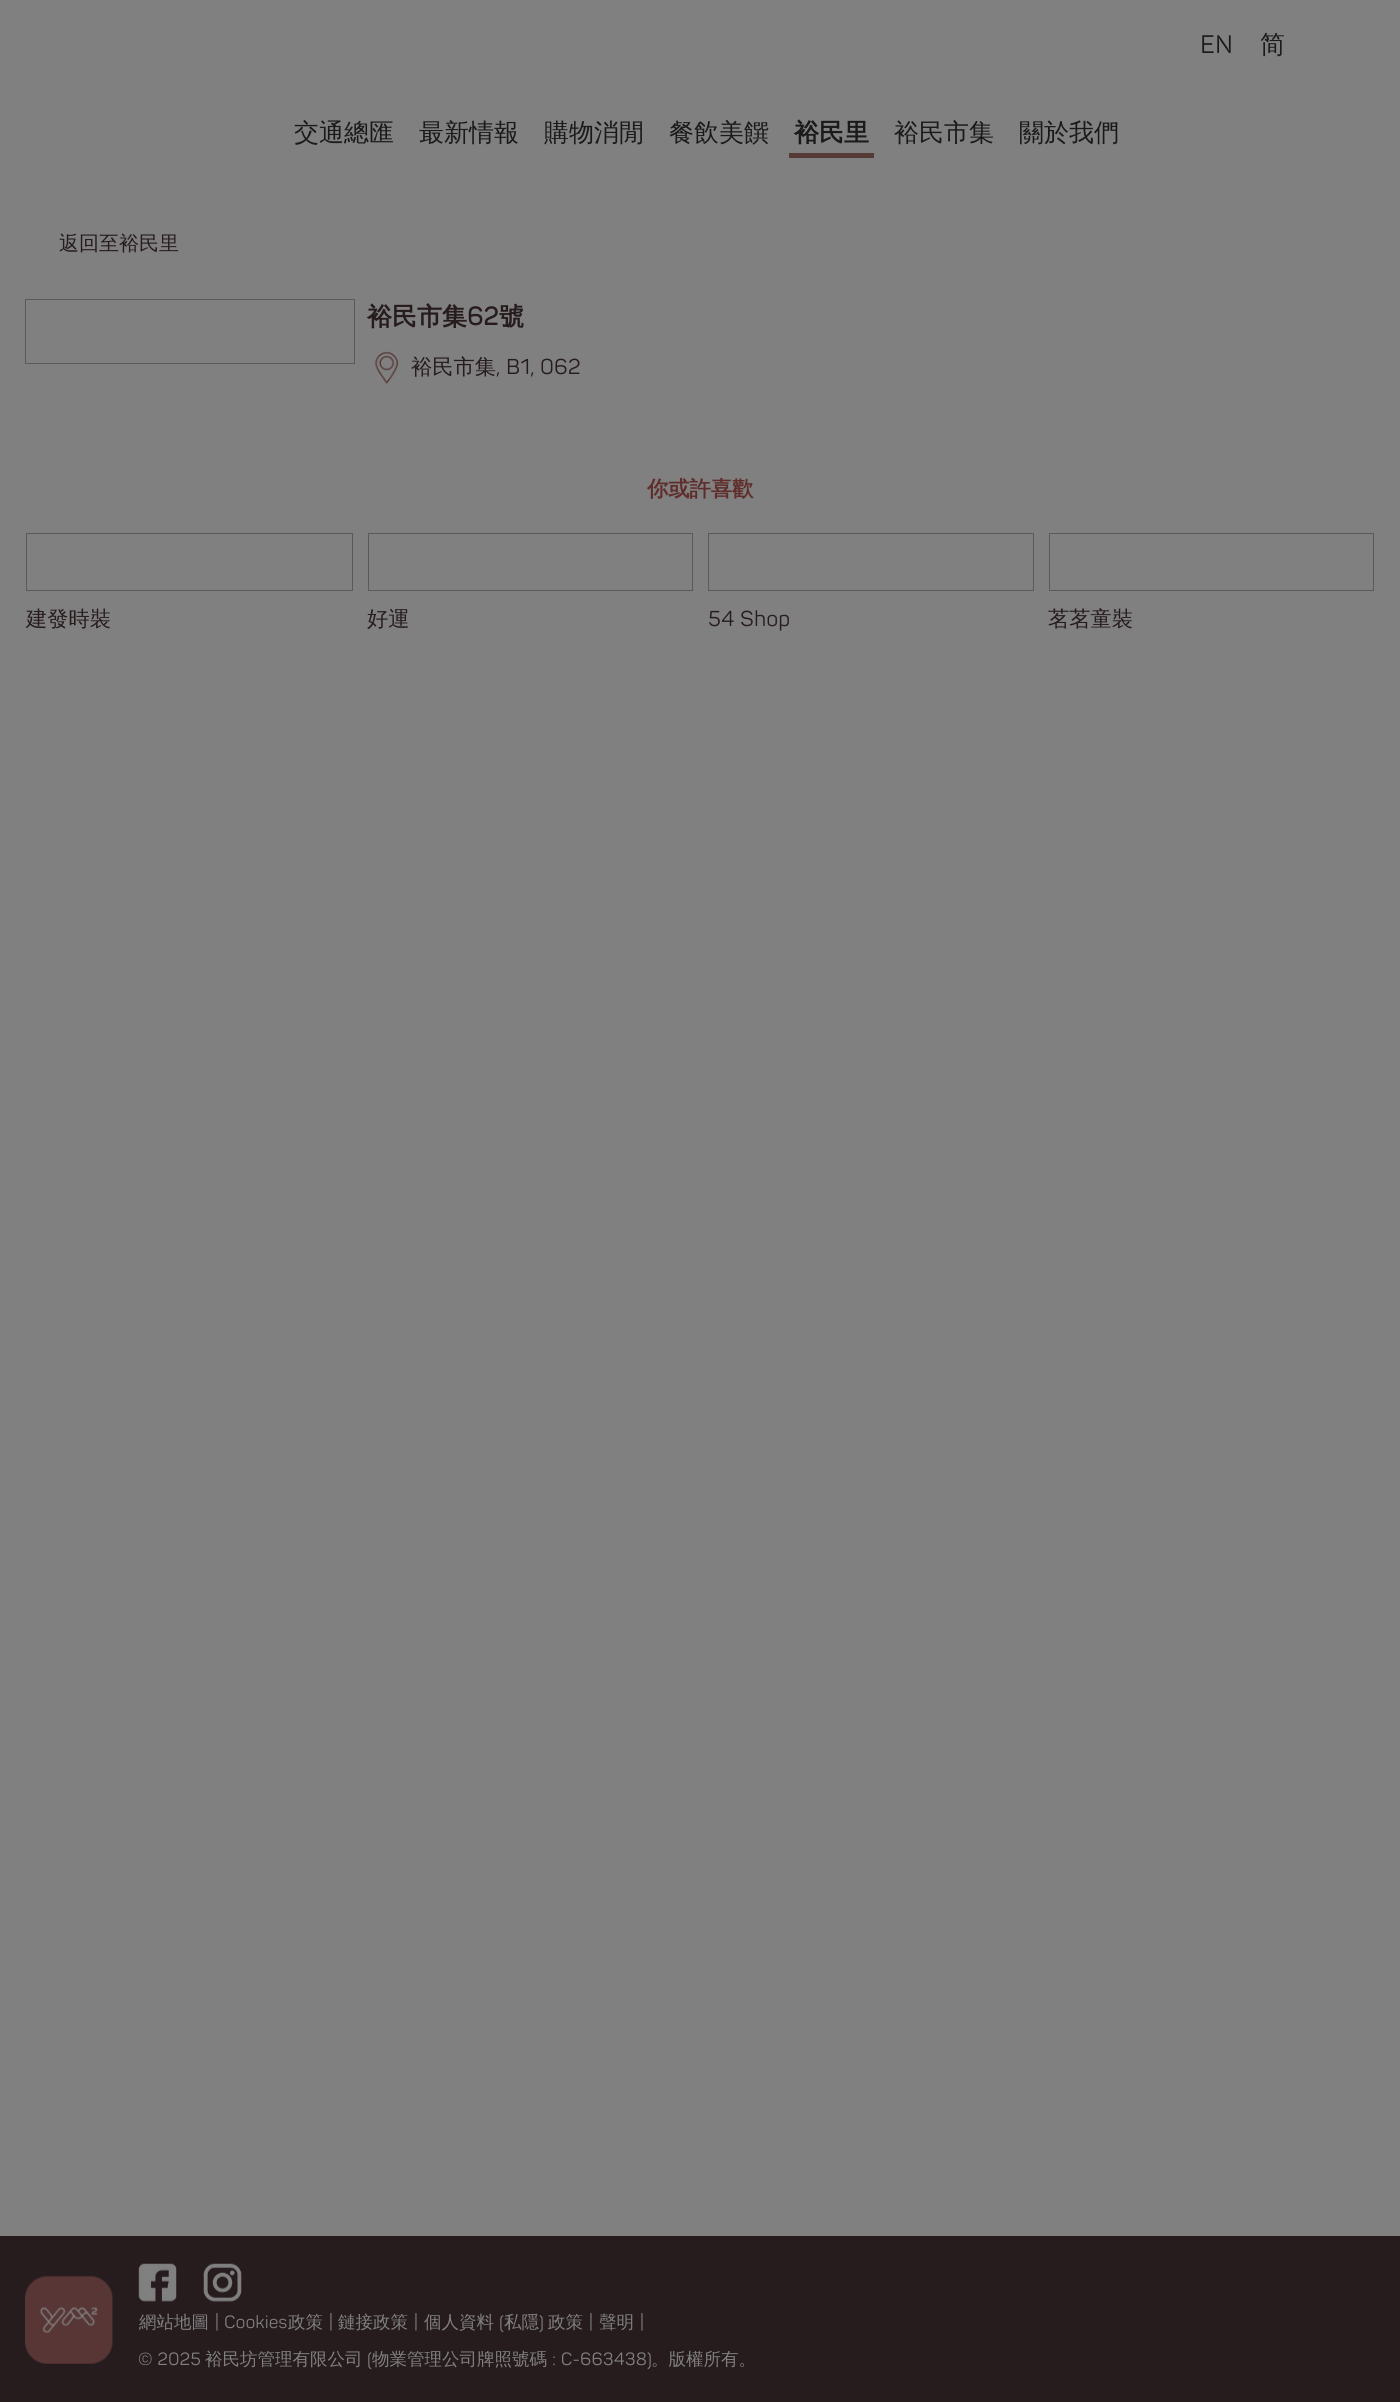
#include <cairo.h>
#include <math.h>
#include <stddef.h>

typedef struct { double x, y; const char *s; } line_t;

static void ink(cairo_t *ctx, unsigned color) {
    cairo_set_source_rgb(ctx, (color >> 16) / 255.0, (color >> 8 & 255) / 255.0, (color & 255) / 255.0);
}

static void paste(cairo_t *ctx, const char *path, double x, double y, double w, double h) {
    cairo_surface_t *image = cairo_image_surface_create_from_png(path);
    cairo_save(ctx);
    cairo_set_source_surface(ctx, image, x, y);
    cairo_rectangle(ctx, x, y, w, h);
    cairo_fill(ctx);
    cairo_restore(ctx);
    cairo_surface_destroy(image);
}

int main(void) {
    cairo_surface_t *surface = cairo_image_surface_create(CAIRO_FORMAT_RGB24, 1400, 2402);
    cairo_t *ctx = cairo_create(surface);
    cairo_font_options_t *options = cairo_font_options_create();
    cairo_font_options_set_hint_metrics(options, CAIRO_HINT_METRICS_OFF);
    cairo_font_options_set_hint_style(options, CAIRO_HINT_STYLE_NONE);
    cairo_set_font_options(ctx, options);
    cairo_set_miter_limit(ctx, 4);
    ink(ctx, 0x808080);
    cairo_paint(ctx);
    cairo_select_font_face(ctx, "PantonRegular", CAIRO_FONT_SLANT_NORMAL, CAIRO_FONT_WEIGHT_NORMAL);
    cairo_set_font_size(ctx, 25);
    ink(ctx, 0x1A1A1A);
    cairo_move_to(ctx, 1200, 53);
    cairo_show_text(ctx, "EN");
    cairo_select_font_face(ctx, "WenQuanYi Zen Hei Medium", CAIRO_FONT_SLANT_NORMAL, CAIRO_FONT_WEIGHT_NORMAL);
    {
        static const line_t items[] = {
            {1260, 53, "简"},
            {294, 141, "交通總匯"},
            {419, 141, "最新情報"},
            {544, 141, "購物消閒"},
            {669, 141, "餐飲美饌"},
        };
        for (size_t i = 0; i < sizeof items / sizeof *items; i++) {
            cairo_move_to(ctx, items[i].x, items[i].y);
            cairo_show_text(ctx, items[i].s);
        }
    }
    cairo_select_font_face(ctx, "WenQuanYi Zen Hei", CAIRO_FONT_SLANT_NORMAL, CAIRO_FONT_WEIGHT_BOLD);
    cairo_move_to(ctx, 794, 141);
    cairo_show_text(ctx, "裕民里");
    ink(ctx, 0x563A36);
    cairo_rectangle(ctx, 789, 153, 85, 5);
    cairo_fill(ctx);
    cairo_select_font_face(ctx, "WenQuanYi Zen Hei Medium", CAIRO_FONT_SLANT_NORMAL, CAIRO_FONT_WEIGHT_NORMAL);
    ink(ctx, 0x1A1A1A);
    cairo_move_to(ctx, 894, 141);
    cairo_show_text(ctx, "裕民市集");
    cairo_move_to(ctx, 1019, 141);
    cairo_show_text(ctx, "關於我們");
    cairo_set_font_size(ctx, 20);
    ink(ctx, 0x261B1D);
    cairo_move_to(ctx, 59, 250);
    cairo_show_text(ctx, "返回至裕民里");
    cairo_rectangle(ctx, 25.5, 299.5, 329, 64);
    ink(ctx, 0x5A595B);
    cairo_set_line_width(ctx, 1);
    cairo_stroke(ctx);
    cairo_select_font_face(ctx, "WenQuanYi Zen Hei", CAIRO_FONT_SLANT_NORMAL, CAIRO_FONT_WEIGHT_BOLD);
    cairo_set_font_size(ctx, 25);
    ink(ctx, 0x261B1D);
    cairo_move_to(ctx, 367, 325);
    cairo_show_text(ctx, "裕民市集");
    cairo_select_font_face(ctx, "PantonRegular", CAIRO_FONT_SLANT_NORMAL, CAIRO_FONT_WEIGHT_BOLD);
    cairo_move_to(ctx, 467, 325);
    cairo_show_text(ctx, "62");
    cairo_select_font_face(ctx, "WenQuanYi Zen Hei", CAIRO_FONT_SLANT_NORMAL, CAIRO_FONT_WEIGHT_BOLD);
    cairo_move_to(ctx, 499, 325);
    cairo_show_text(ctx, "號");
    paste(ctx, "media/1.png", 374, 351, 25, 33);
    cairo_select_font_face(ctx, "WenQuanYi Zen Hei Medium", CAIRO_FONT_SLANT_NORMAL, CAIRO_FONT_WEIGHT_NORMAL);
    cairo_set_font_size(ctx, 21.25);
    cairo_move_to(ctx, 411, 374);
    cairo_show_text(ctx, "裕民市集");
    cairo_select_font_face(ctx, "PantonRegular", CAIRO_FONT_SLANT_NORMAL, CAIRO_FONT_WEIGHT_NORMAL);
    cairo_move_to(ctx, 496, 374);
    cairo_show_text(ctx, ", B1, 062");
    cairo_select_font_face(ctx, "WenQuanYi Zen Hei", CAIRO_FONT_SLANT_NORMAL, CAIRO_FONT_WEIGHT_BOLD);
    ink(ctx, 0x5F2D2B);
    cairo_move_to(ctx, 647, 496);
    cairo_show_text(ctx, "你或許喜歡");
    cairo_rectangle(ctx, 26.5, 533.5, 326, 57);
    ink(ctx, 0x5A595B);
    cairo_stroke(ctx);
    cairo_select_font_face(ctx, "WenQuanYi Zen Hei Medium", CAIRO_FONT_SLANT_NORMAL, CAIRO_FONT_WEIGHT_NORMAL);
    ink(ctx, 0x261B1D);
    cairo_move_to(ctx, 26, 626);
    cairo_show_text(ctx, "建發時裝");
    cairo_rectangle(ctx, 368.5, 533.5, 324, 57);
    ink(ctx, 0x5A595B);
    cairo_stroke(ctx);
    ink(ctx, 0x261B1D);
    cairo_move_to(ctx, 367, 626);
    cairo_show_text(ctx, "好運");
    cairo_rectangle(ctx, 708.5, 533.5, 325, 57);
    ink(ctx, 0x5A595B);
    cairo_stroke(ctx);
    cairo_select_font_face(ctx, "PantonRegular", CAIRO_FONT_SLANT_NORMAL, CAIRO_FONT_WEIGHT_NORMAL);
    ink(ctx, 0x261B1D);
    cairo_move_to(ctx, 708, 626);
    cairo_show_text(ctx, "54 Shop");
    cairo_rectangle(ctx, 1049.5, 533.5, 324, 57);
    ink(ctx, 0x5A595B);
    cairo_stroke(ctx);
    cairo_select_font_face(ctx, "WenQuanYi Zen Hei Medium", CAIRO_FONT_SLANT_NORMAL, CAIRO_FONT_WEIGHT_NORMAL);
    ink(ctx, 0x261B1D);
    cairo_move_to(ctx, 1048, 626);
    cairo_show_text(ctx, "茗茗童裝");
    cairo_rectangle(ctx, 0, 2236, 1400, 166);
    cairo_fill(ctx);
    paste(ctx, "media/2.png", 25, 2275, 88, 89);
    paste(ctx, "media/3.png", 138, 2263, 39, 39);
    paste(ctx, "media/4.png", 203, 2263, 39, 39);
    cairo_set_font_size(ctx, 17.5);
    ink(ctx, 0x808080);
    cairo_move_to(ctx, 139, 2328);
    cairo_show_text(ctx, "網站地圖");
    cairo_select_font_face(ctx, "PantonRegular", CAIRO_FONT_SLANT_NORMAL, CAIRO_FONT_WEIGHT_NORMAL);
    cairo_move_to(ctx, 215, 2328);
    cairo_show_text(ctx, "|");
    cairo_move_to(ctx, 224, 2328);
    cairo_show_text(ctx, "Cookies");
    cairo_select_font_face(ctx, "WenQuanYi Zen Hei Medium", CAIRO_FONT_SLANT_NORMAL, CAIRO_FONT_WEIGHT_NORMAL);
    cairo_move_to(ctx, 288, 2328);
    cairo_show_text(ctx, "政策");
    cairo_select_font_face(ctx, "PantonRegular", CAIRO_FONT_SLANT_NORMAL, CAIRO_FONT_WEIGHT_NORMAL);
    cairo_move_to(ctx, 329, 2328);
    cairo_show_text(ctx, "|");
    cairo_select_font_face(ctx, "WenQuanYi Zen Hei Medium", CAIRO_FONT_SLANT_NORMAL, CAIRO_FONT_WEIGHT_NORMAL);
    cairo_move_to(ctx, 338, 2328);
    cairo_show_text(ctx, "鏈接政策");
    cairo_select_font_face(ctx, "PantonRegular", CAIRO_FONT_SLANT_NORMAL, CAIRO_FONT_WEIGHT_NORMAL);
    cairo_move_to(ctx, 414, 2328);
    cairo_show_text(ctx, "|");
    cairo_select_font_face(ctx, "WenQuanYi Zen Hei Medium", CAIRO_FONT_SLANT_NORMAL, CAIRO_FONT_WEIGHT_NORMAL);
    cairo_move_to(ctx, 424, 2328);
    cairo_show_text(ctx, "個人資料");
    cairo_select_font_face(ctx, "PantonRegular", CAIRO_FONT_SLANT_NORMAL, CAIRO_FONT_WEIGHT_NORMAL);
    cairo_move_to(ctx, 499, 2328);
    cairo_show_text(ctx, "(");
    cairo_select_font_face(ctx, "WenQuanYi Zen Hei Medium", CAIRO_FONT_SLANT_NORMAL, CAIRO_FONT_WEIGHT_NORMAL);
    cairo_move_to(ctx, 504, 2328);
    cairo_show_text(ctx, "私隱");
    cairo_select_font_face(ctx, "PantonRegular", CAIRO_FONT_SLANT_NORMAL, CAIRO_FONT_WEIGHT_NORMAL);
    cairo_move_to(ctx, 539, 2328);
    cairo_show_text(ctx, ")");
    cairo_select_font_face(ctx, "WenQuanYi Zen Hei Medium", CAIRO_FONT_SLANT_NORMAL, CAIRO_FONT_WEIGHT_NORMAL);
    cairo_move_to(ctx, 548, 2328);
    cairo_show_text(ctx, "政策");
    cairo_select_font_face(ctx, "PantonRegular", CAIRO_FONT_SLANT_NORMAL, CAIRO_FONT_WEIGHT_NORMAL);
    cairo_move_to(ctx, 589, 2328);
    cairo_show_text(ctx, "|");
    cairo_select_font_face(ctx, "WenQuanYi Zen Hei Medium", CAIRO_FONT_SLANT_NORMAL, CAIRO_FONT_WEIGHT_NORMAL);
    cairo_move_to(ctx, 599, 2328);
    cairo_show_text(ctx, "聲明");
    cairo_select_font_face(ctx, "PantonRegular", CAIRO_FONT_SLANT_NORMAL, CAIRO_FONT_WEIGHT_NORMAL);
    cairo_move_to(ctx, 640, 2328);
    cairo_show_text(ctx, "|");
    cairo_move_to(ctx, 138, 2365);
    cairo_show_text(ctx, "© 2025");
    cairo_select_font_face(ctx, "WenQuanYi Zen Hei Medium", CAIRO_FONT_SLANT_NORMAL, CAIRO_FONT_WEIGHT_NORMAL);
    cairo_move_to(ctx, 205, 2365);
    cairo_show_text(ctx, "裕民坊管理有限公司");
    cairo_select_font_face(ctx, "PantonRegular", CAIRO_FONT_SLANT_NORMAL, CAIRO_FONT_WEIGHT_NORMAL);
    cairo_move_to(ctx, 367, 2365);
    cairo_show_text(ctx, "(");
    cairo_select_font_face(ctx, "WenQuanYi Zen Hei Medium", CAIRO_FONT_SLANT_NORMAL, CAIRO_FONT_WEIGHT_NORMAL);
    cairo_move_to(ctx, 372, 2365);
    cairo_show_text(ctx, "物業管理公司牌照號碼");
    cairo_select_font_face(ctx, "PantonRegular", CAIRO_FONT_SLANT_NORMAL, CAIRO_FONT_WEIGHT_NORMAL);
    cairo_move_to(ctx, 552, 2365);
    cairo_show_text(ctx, ": C-663438)");
    cairo_select_font_face(ctx, "WenQuanYi Zen Hei Medium", CAIRO_FONT_SLANT_NORMAL, CAIRO_FONT_WEIGHT_NORMAL);
    cairo_move_to(ctx, 651, 2365);
    cairo_show_text(ctx, "。版權所有。");
    cairo_surface_write_to_png(surface, "image.png");
    cairo_font_options_destroy(options);
    cairo_destroy(ctx);
    cairo_surface_destroy(surface);
    return 0;
}
